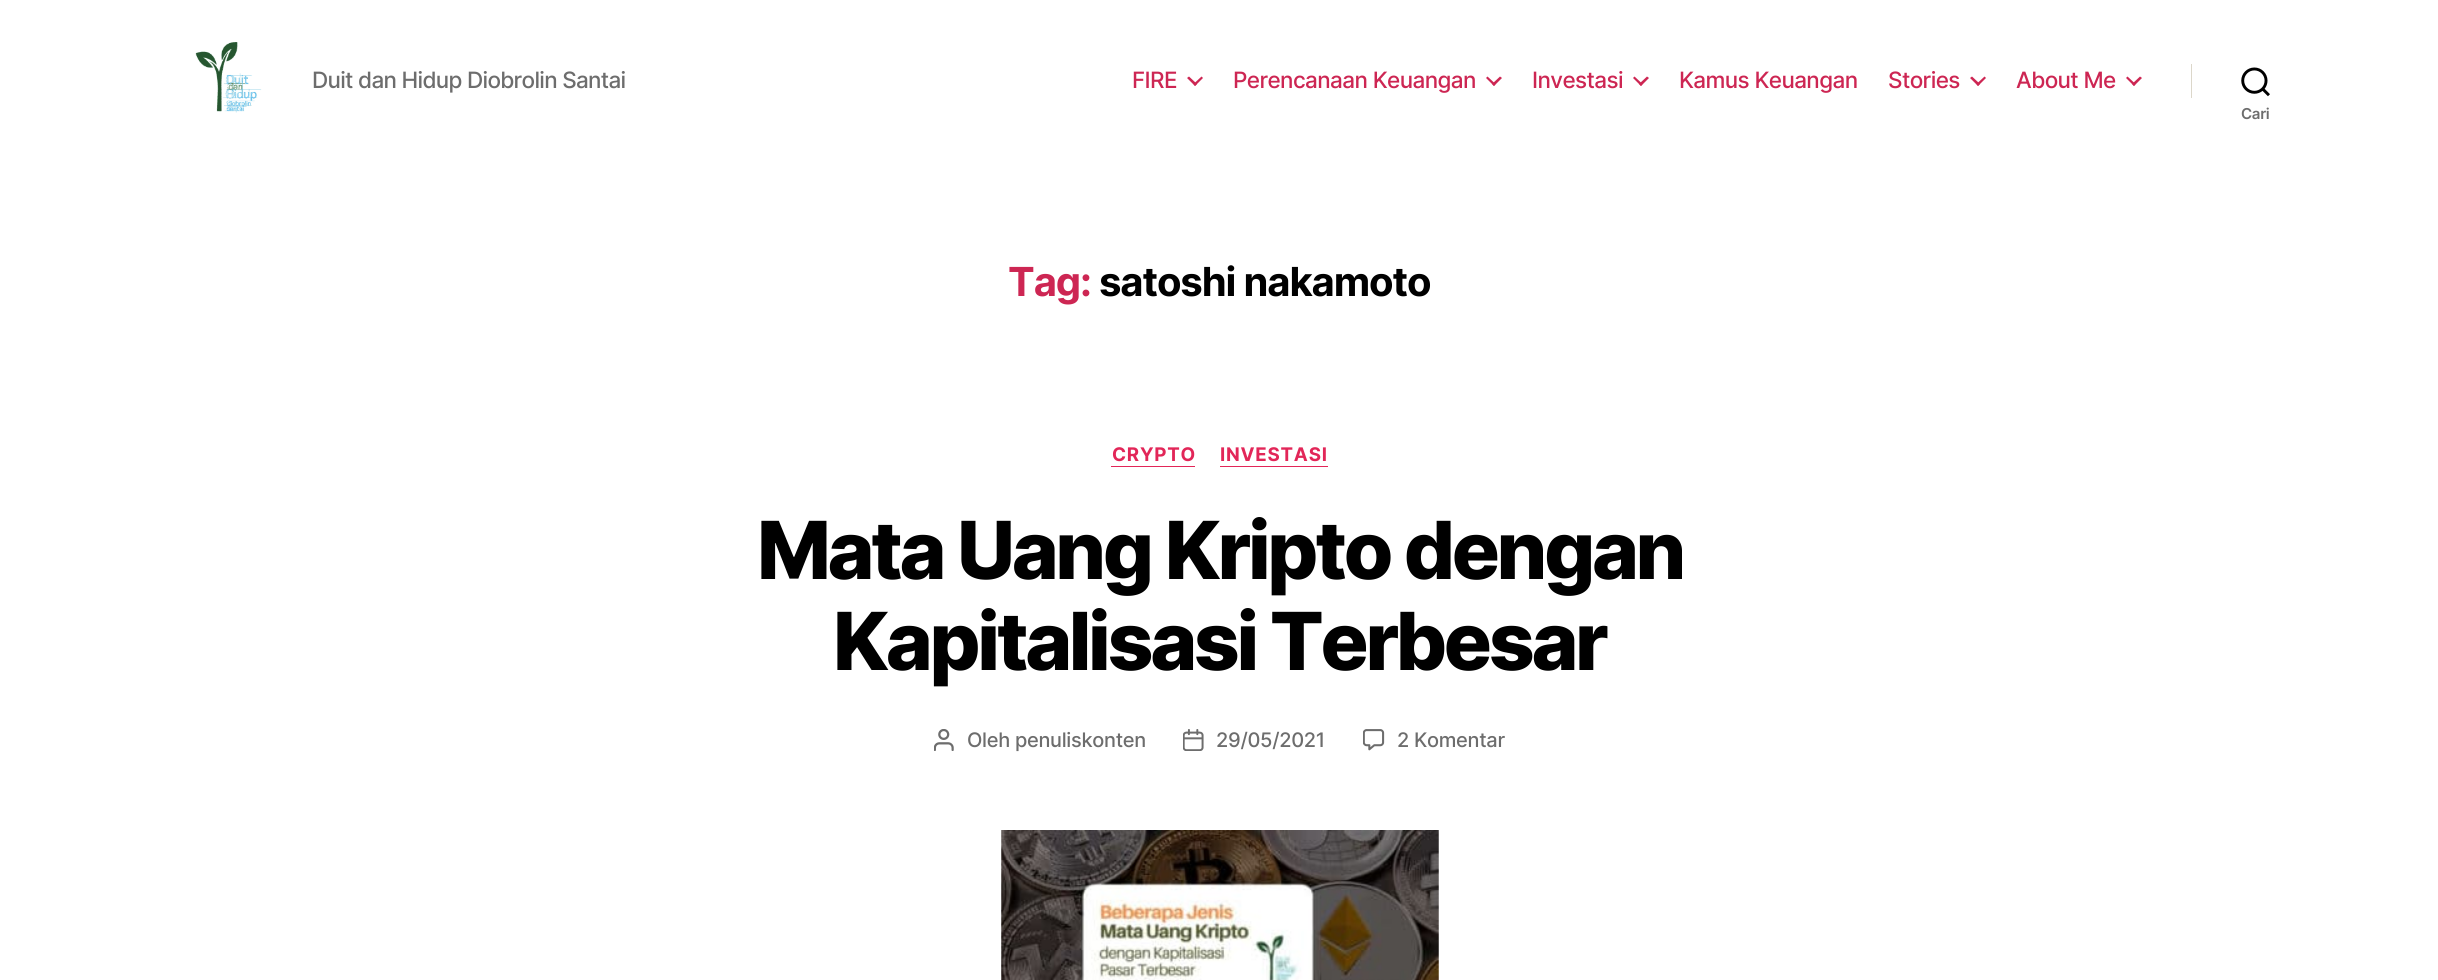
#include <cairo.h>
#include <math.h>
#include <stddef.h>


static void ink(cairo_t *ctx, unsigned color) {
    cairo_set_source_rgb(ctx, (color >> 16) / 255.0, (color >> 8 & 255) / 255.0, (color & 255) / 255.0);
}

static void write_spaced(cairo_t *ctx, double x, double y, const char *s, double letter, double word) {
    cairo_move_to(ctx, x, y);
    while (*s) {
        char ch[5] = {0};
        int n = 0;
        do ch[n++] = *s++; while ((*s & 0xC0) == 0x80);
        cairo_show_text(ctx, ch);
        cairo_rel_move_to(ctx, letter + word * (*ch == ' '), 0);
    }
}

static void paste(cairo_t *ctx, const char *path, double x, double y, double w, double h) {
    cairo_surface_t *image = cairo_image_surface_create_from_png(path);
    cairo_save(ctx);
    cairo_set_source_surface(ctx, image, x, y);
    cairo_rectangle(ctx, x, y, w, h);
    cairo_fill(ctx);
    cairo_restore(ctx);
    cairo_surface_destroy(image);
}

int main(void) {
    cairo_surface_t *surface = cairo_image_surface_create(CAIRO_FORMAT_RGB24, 2438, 980);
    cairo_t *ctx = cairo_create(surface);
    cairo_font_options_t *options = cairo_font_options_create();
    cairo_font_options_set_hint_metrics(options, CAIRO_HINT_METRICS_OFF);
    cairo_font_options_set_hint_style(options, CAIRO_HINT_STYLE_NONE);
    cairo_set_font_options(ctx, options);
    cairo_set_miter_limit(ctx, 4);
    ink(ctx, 0xFFFFFF);
    cairo_paint(ctx);
    paste(ctx, "media/1.png", 195, 42, 67, 71);
    cairo_select_font_face(ctx, "Inter Medium", CAIRO_FONT_SLANT_NORMAL, CAIRO_FONT_WEIGHT_NORMAL);
    cairo_set_font_size(ctx, 22.5);
    ink(ctx, 0x6D6D6D);
    write_spaced(ctx, 312, 88, "Duit dan Hidup Diobrolin Santai", -0.7, 0);
    ink(ctx, 0xCD2653);
    write_spaced(ctx, 1132, 88, "FIRE", -0.6, 0);
    cairo_new_path(ctx);
    cairo_move_to(ctx, 1187, 78);
    cairo_line_to(ctx, 1189, 76.5);
    cairo_line_to(ctx, 1197, 84);
    cairo_line_to(ctx, 1195, 86);
    cairo_close_path(ctx);
    cairo_fill(ctx);
    cairo_new_path(ctx);
    cairo_move_to(ctx, 1193.5, 84);
    cairo_line_to(ctx, 1201.5, 76.5);
    cairo_line_to(ctx, 1203, 78);
    cairo_line_to(ctx, 1195, 86);
    cairo_close_path(ctx);
    cairo_fill(ctx);
    write_spaced(ctx, 1233, 88, "Perencanaan Keuangan", -0.6, 0);
    cairo_new_path(ctx);
    cairo_move_to(ctx, 1486, 78);
    cairo_line_to(ctx, 1487.5, 76.5);
    cairo_line_to(ctx, 1495.5, 84);
    cairo_line_to(ctx, 1494, 86);
    cairo_close_path(ctx);
    cairo_fill(ctx);
    cairo_new_path(ctx);
    cairo_move_to(ctx, 1492, 84);
    cairo_line_to(ctx, 1500, 76.5);
    cairo_line_to(ctx, 1502, 78);
    cairo_line_to(ctx, 1494, 86);
    cairo_close_path(ctx);
    cairo_fill(ctx);
    write_spaced(ctx, 1532, 88, "Investasi", -0.6, 0);
    cairo_new_path(ctx);
    cairo_move_to(ctx, 1633, 78);
    cairo_line_to(ctx, 1634.5, 76.5);
    cairo_line_to(ctx, 1642.5, 84);
    cairo_line_to(ctx, 1641, 86);
    cairo_close_path(ctx);
    cairo_fill(ctx);
    cairo_new_path(ctx);
    cairo_move_to(ctx, 1639, 84);
    cairo_line_to(ctx, 1647, 76.5);
    cairo_line_to(ctx, 1649, 78);
    cairo_line_to(ctx, 1641, 86);
    cairo_close_path(ctx);
    cairo_fill(ctx);
    write_spaced(ctx, 1679, 88, "Kamus Keuangan", -0.6, 0);
    write_spaced(ctx, 1888, 88, "Stories", -0.6, 0);
    cairo_new_path(ctx);
    cairo_move_to(ctx, 1970, 78);
    cairo_line_to(ctx, 1972, 76.5);
    cairo_line_to(ctx, 1980, 84);
    cairo_line_to(ctx, 1978, 86);
    cairo_close_path(ctx);
    cairo_fill(ctx);
    cairo_new_path(ctx);
    cairo_move_to(ctx, 1976.5, 84);
    cairo_line_to(ctx, 1984.5, 76.5);
    cairo_line_to(ctx, 1986, 78);
    cairo_line_to(ctx, 1978, 86);
    cairo_close_path(ctx);
    cairo_fill(ctx);
    write_spaced(ctx, 2016, 88, "About Me", -0.6, 0);
    cairo_new_path(ctx);
    cairo_move_to(ctx, 2126, 78);
    cairo_line_to(ctx, 2127.5, 76.5);
    cairo_line_to(ctx, 2135.5, 84);
    cairo_line_to(ctx, 2134, 86);
    cairo_close_path(ctx);
    cairo_fill(ctx);
    cairo_new_path(ctx);
    cairo_move_to(ctx, 2132, 84);
    cairo_line_to(ctx, 2140, 76.5);
    cairo_line_to(ctx, 2142, 78);
    cairo_line_to(ctx, 2134, 86);
    cairo_close_path(ctx);
    cairo_fill(ctx);
    ink(ctx, 0xDCD7CA);
    cairo_rectangle(ctx, 2191, 64, 1, 34);
    cairo_fill(ctx);
    paste(ctx, "media/2.png", 2241, 67, 29, 30);
    cairo_select_font_face(ctx, "Inter SemiBold", CAIRO_FONT_SLANT_NORMAL, CAIRO_FONT_WEIGHT_NORMAL);
    cairo_set_font_size(ctx, 15);
    ink(ctx, 0x6D6D6D);
    write_spaced(ctx, 2241, 119, "Cari", -0.3, 0);
    cairo_select_font_face(ctx, "Inter", CAIRO_FONT_SLANT_NORMAL, CAIRO_FONT_WEIGHT_BOLD);
    cairo_set_font_size(ctx, 40);
    ink(ctx, 0xCD2653);
    write_spaced(ctx, 1008, 296, "Tag:", -1.1, 0);
    ink(ctx, 0x000000);
    write_spaced(ctx, 1099, 296, "satoshi nakamoto", -1.1, 0);
    ink(ctx, 0xE22658);
    cairo_rectangle(ctx, 1111, 466, 84, 1);
    cairo_fill(ctx);
    cairo_set_font_size(ctx, 18.75);
    write_spaced(ctx, 1112, 461, "CRYPTO", 0.75, 0);
    cairo_rectangle(ctx, 1220, 466, 108, 1);
    cairo_fill(ctx);
    write_spaced(ctx, 1220, 461, "INVESTASI", 0.75, 0);
    cairo_select_font_face(ctx, "Inter ExtraBold", CAIRO_FONT_SLANT_NORMAL, CAIRO_FONT_WEIGHT_NORMAL);
    cairo_set_font_size(ctx, 80);
    ink(ctx, 0x000000);
    write_spaced(ctx, 757, 579, "Mata Uang Kripto dengan", -3.3, 0);
    write_spaced(ctx, 833, 670, "Kapitalisasi Terbesar", -3.3, 0);
    paste(ctx, "media/3.png", 934, 729, 20, 22);
    cairo_select_font_face(ctx, "Inter Medium", CAIRO_FONT_SLANT_NORMAL, CAIRO_FONT_WEIGHT_NORMAL);
    cairo_set_font_size(ctx, 20);
    ink(ctx, 0x6D6D6D);
    write_spaced(ctx, 967, 747, "Oleh penuliskonten", -0.3, 0);
    paste(ctx, "media/4.png", 1183, 729, 21, 22);
    write_spaced(ctx, 1216, 747, "29/05/2021", -0.3, 0);
    paste(ctx, "media/5.png", 1363, 729, 22, 22);
    write_spaced(ctx, 1397, 747, "2 Komentar", -0.3, 0);
    paste(ctx, "media/6.png", 1001, 830, 438, 150);
    cairo_surface_write_to_png(surface, "image.png");
    cairo_font_options_destroy(options);
    cairo_destroy(ctx);
    cairo_surface_destroy(surface);
    return 0;
}
